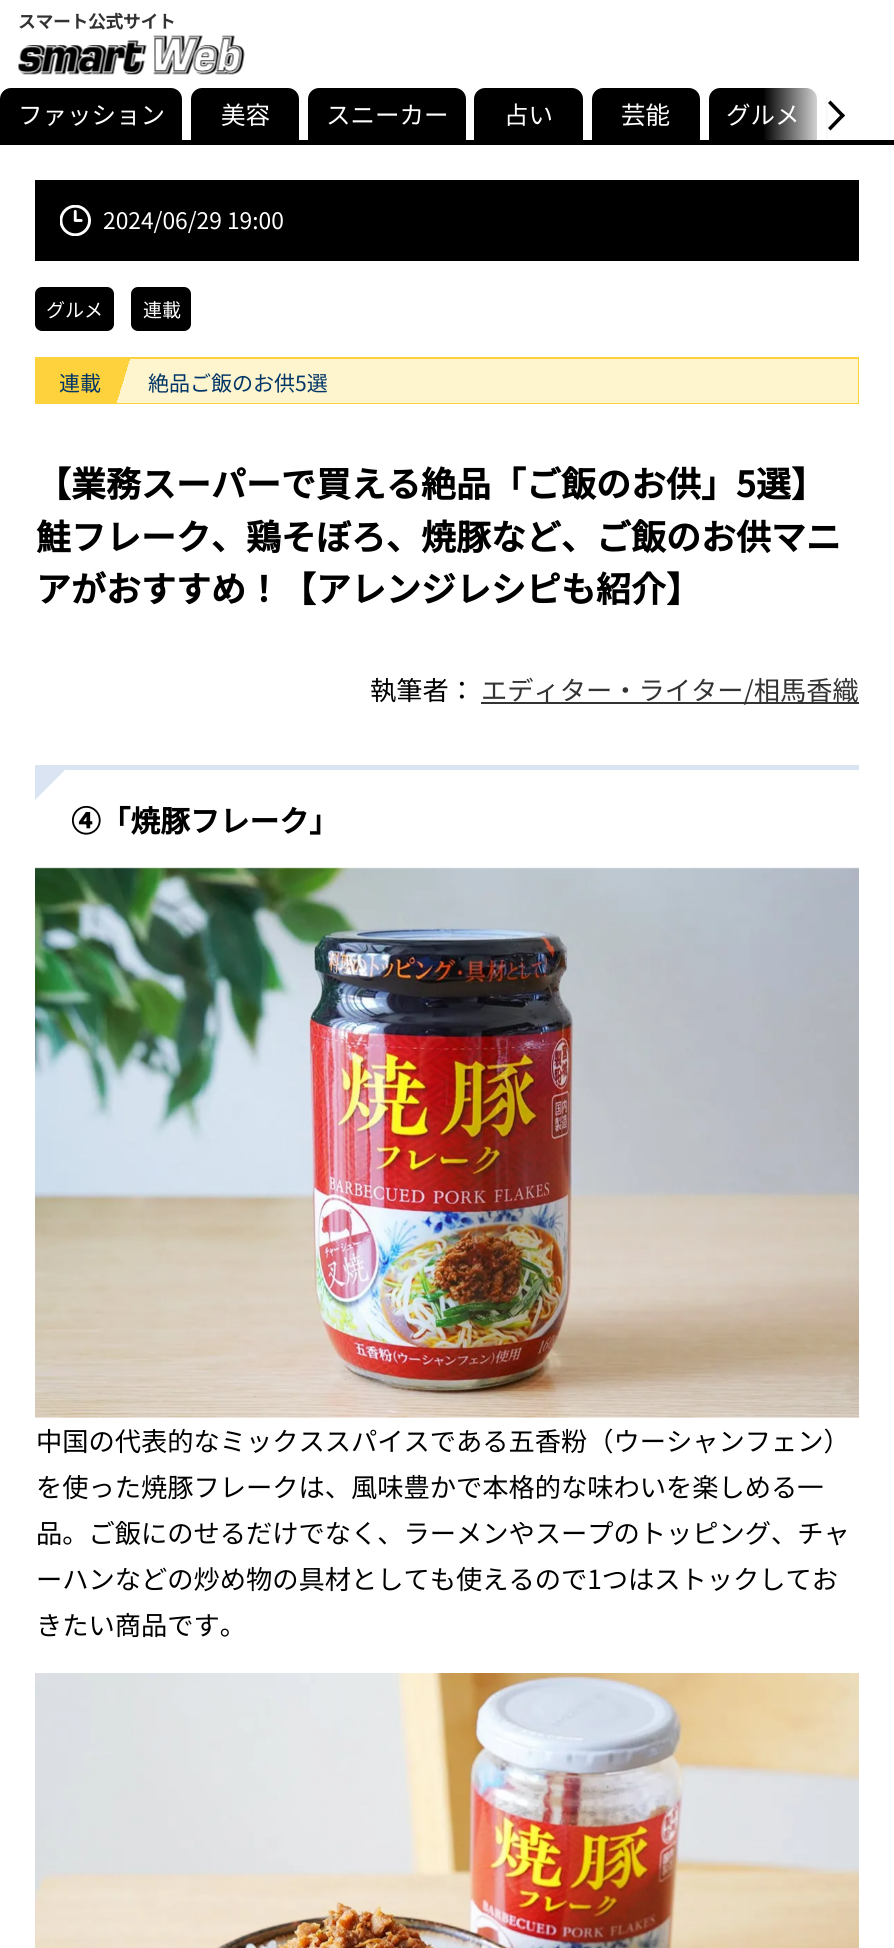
#include <cairo.h>
#include <math.h>
#include <stddef.h>

typedef struct { double x, y; const char *s; } line_t;

static void ink(cairo_t *ctx, unsigned color) {
    cairo_set_source_rgb(ctx, (color >> 16) / 255.0, (color >> 8 & 255) / 255.0, (color & 255) / 255.0);
}

static void round_path(cairo_t *ctx, double x, double y, double w, double h, double r) {
    cairo_new_sub_path(ctx);
    cairo_arc(ctx, x + w - r, y + h - r, r, 0, M_PI / 2);
    cairo_arc(ctx, x + r, y + h - r, r, M_PI / 2, M_PI);
    cairo_arc(ctx, x + r, y + r, r, M_PI, 1.5 * M_PI);
    cairo_arc(ctx, x + w - r, y + r, r, 1.5 * M_PI, 2 * M_PI);
    cairo_close_path(ctx);
}

static void paste(cairo_t *ctx, const char *path, double x, double y, double w, double h) {
    cairo_surface_t *image = cairo_image_surface_create_from_png(path);
    cairo_save(ctx);
    cairo_set_source_surface(ctx, image, x, y);
    cairo_rectangle(ctx, x, y, w, h);
    cairo_fill(ctx);
    cairo_restore(ctx);
    cairo_surface_destroy(image);
}

int main(void) {
    cairo_surface_t *surface = cairo_image_surface_create(CAIRO_FORMAT_RGB24, 894, 1948);
    cairo_t *ctx = cairo_create(surface);
    cairo_font_options_t *options = cairo_font_options_create();
    cairo_font_options_set_hint_metrics(options, CAIRO_HINT_METRICS_OFF);
    cairo_font_options_set_hint_style(options, CAIRO_HINT_STYLE_NONE);
    cairo_set_font_options(ctx, options);
    cairo_set_miter_limit(ctx, 4);
    cairo_pattern_t *gradient;
    ink(ctx, 0xFFFFFF);
    cairo_paint(ctx);
    cairo_select_font_face(ctx, "Noto Sans JP", CAIRO_FONT_SLANT_NORMAL, CAIRO_FONT_WEIGHT_BOLD);
    cairo_set_font_size(ctx, 17.5);
    ink(ctx, 0x333333);
    cairo_move_to(ctx, 18, 28);
    cairo_show_text(ctx, "スマート公式サイト");
    paste(ctx, "media/1.png", 18, 35, 227, 40);
    ink(ctx, 0x000000);
    cairo_rectangle(ctx, 0, 140, 894, 5);
    cairo_fill(ctx);
    cairo_new_path(ctx);
    cairo_move_to(ctx, 11, 88);
    cairo_line_to(ctx, 171, 88);
    cairo_curve_to(ctx, 177, 88, 182, 93, 182, 99);
    cairo_line_to(ctx, 182, 140);
    cairo_line_to(ctx, 0, 140);
    cairo_line_to(ctx, 0, 99);
    cairo_curve_to(ctx, 0, 93, 5, 88, 11, 88);
    cairo_close_path(ctx);
    cairo_fill(ctx);
    cairo_select_font_face(ctx, "Noto Sans JP", CAIRO_FONT_SLANT_NORMAL, CAIRO_FONT_WEIGHT_NORMAL);
    cairo_set_font_size(ctx, 24.5);
    ink(ctx, 0xFFFFFF);
    cairo_move_to(ctx, 18, 124);
    cairo_show_text(ctx, "ファッション");
    ink(ctx, 0x000000);
    cairo_new_path(ctx);
    cairo_move_to(ctx, 202, 88);
    cairo_line_to(ctx, 288, 88);
    cairo_curve_to(ctx, 294, 88, 299, 93, 299, 99);
    cairo_line_to(ctx, 299, 140);
    cairo_line_to(ctx, 191, 140);
    cairo_line_to(ctx, 191, 99);
    cairo_curve_to(ctx, 191, 93, 196, 88, 202, 88);
    cairo_close_path(ctx);
    cairo_fill(ctx);
    ink(ctx, 0xFFFFFF);
    cairo_move_to(ctx, 221, 124);
    cairo_show_text(ctx, "美容");
    ink(ctx, 0x000000);
    cairo_new_path(ctx);
    cairo_move_to(ctx, 319, 88);
    cairo_line_to(ctx, 455, 88);
    cairo_curve_to(ctx, 461, 88, 466, 93, 466, 99);
    cairo_line_to(ctx, 466, 140);
    cairo_line_to(ctx, 308, 140);
    cairo_line_to(ctx, 308, 99);
    cairo_curve_to(ctx, 308, 93, 313, 88, 319, 88);
    cairo_close_path(ctx);
    cairo_fill(ctx);
    ink(ctx, 0xFFFFFF);
    cairo_move_to(ctx, 326, 124);
    cairo_show_text(ctx, "スニーカー");
    ink(ctx, 0x000000);
    cairo_new_path(ctx);
    cairo_move_to(ctx, 485, 88);
    cairo_line_to(ctx, 572, 88);
    cairo_curve_to(ctx, 578, 88, 583, 93, 583, 99);
    cairo_line_to(ctx, 583, 140);
    cairo_line_to(ctx, 474, 140);
    cairo_line_to(ctx, 474, 99);
    cairo_curve_to(ctx, 474, 93, 479, 88, 485, 88);
    cairo_close_path(ctx);
    cairo_fill(ctx);
    ink(ctx, 0xFFFFFF);
    cairo_move_to(ctx, 504, 124);
    cairo_show_text(ctx, "占い");
    ink(ctx, 0x000000);
    cairo_new_path(ctx);
    cairo_move_to(ctx, 603, 88);
    cairo_line_to(ctx, 689, 88);
    cairo_curve_to(ctx, 695, 88, 700, 93, 700, 99);
    cairo_line_to(ctx, 700, 140);
    cairo_line_to(ctx, 592, 140);
    cairo_line_to(ctx, 592, 99);
    cairo_curve_to(ctx, 592, 93, 597, 88, 603, 88);
    cairo_close_path(ctx);
    cairo_fill(ctx);
    ink(ctx, 0xFFFFFF);
    cairo_move_to(ctx, 621, 124);
    cairo_show_text(ctx, "芸能");
    ink(ctx, 0x000000);
    cairo_new_path(ctx);
    cairo_move_to(ctx, 720, 88);
    cairo_line_to(ctx, 806, 88);
    cairo_curve_to(ctx, 812, 88, 817, 93, 817, 99);
    cairo_line_to(ctx, 817, 140);
    cairo_line_to(ctx, 709, 140);
    cairo_line_to(ctx, 709, 99);
    cairo_curve_to(ctx, 709, 93, 714, 88, 720, 88);
    cairo_close_path(ctx);
    cairo_fill(ctx);
    ink(ctx, 0xFFFFFF);
    cairo_move_to(ctx, 726, 124);
    cairo_show_text(ctx, "グルメ");
    ink(ctx, 0x000000);
    cairo_new_path(ctx);
    cairo_move_to(ctx, 837, 88);
    cairo_line_to(ctx, 894, 88);
    cairo_line_to(ctx, 894, 140);
    cairo_line_to(ctx, 826, 140);
    cairo_line_to(ctx, 826, 99);
    cairo_curve_to(ctx, 826, 93, 831, 88, 837, 88);
    cairo_close_path(ctx);
    cairo_fill(ctx);
    gradient = cairo_pattern_create_linear(763, 114, 894, 114);
    cairo_pattern_add_color_stop_rgba(gradient, 0, 1, 1, 1, 0);
    cairo_pattern_add_color_stop_rgba(gradient, 0.5, 1, 1, 1, 1);
    cairo_pattern_add_color_stop_rgba(gradient, 1, 1, 1, 1, 1);
    cairo_set_source(ctx, gradient);
    cairo_pattern_destroy(gradient);
    cairo_rectangle(ctx, 764, 88, 130, 52);
    cairo_fill(ctx);
    ink(ctx, 0x000000);
    cairo_new_path(ctx);
    cairo_move_to(ctx, 830.5, 100.5);
    cairo_line_to(ctx, 845, 115.5);
    cairo_line_to(ctx, 842.5, 118);
    cairo_line_to(ctx, 828, 103);
    cairo_close_path(ctx);
    cairo_fill(ctx);
    cairo_new_path(ctx);
    cairo_move_to(ctx, 842.5, 113);
    cairo_line_to(ctx, 845, 115.5);
    cairo_line_to(ctx, 830.5, 130.5);
    cairo_line_to(ctx, 828, 128);
    cairo_close_path(ctx);
    cairo_fill(ctx);
    cairo_rectangle(ctx, 35, 180, 824, 81);
    cairo_fill(ctx);
    paste(ctx, "media/2.png", 60, 205, 31, 31);
    cairo_set_font_size(ctx, 22.75);
    ink(ctx, 0xFFFFFF);
    cairo_move_to(ctx, 103, 229);
    cairo_show_text(ctx, "2024/06/29 19:00");
    ink(ctx, 0x000000);
    round_path(ctx, 36, 288, 77, 42, 6);
    cairo_fill_preserve(ctx);
    cairo_stroke(ctx);
    cairo_set_font_size(ctx, 19);
    ink(ctx, 0xFFFFFF);
    cairo_move_to(ctx, 46, 317);
    cairo_show_text(ctx, "グルメ");
    ink(ctx, 0x000000);
    round_path(ctx, 132, 288, 58, 42, 6);
    cairo_fill_preserve(ctx);
    cairo_stroke(ctx);
    ink(ctx, 0xFFFFFF);
    cairo_move_to(ctx, 143, 317);
    cairo_show_text(ctx, "連載");
    cairo_rectangle(ctx, 36, 358, 822, 45);
    ink(ctx, 0xFDD23D);
    cairo_stroke(ctx);
    ink(ctx, 0xFEF4CE);
    cairo_rectangle(ctx, 130, 359, 728, 44);
    cairo_fill(ctx);
    ink(ctx, 0xFDD23D);
    cairo_rectangle(ctx, 37, 359, 80, 43);
    cairo_fill(ctx);
    cairo_set_font_size(ctx, 21);
    ink(ctx, 0x003567);
    cairo_move_to(ctx, 59, 391);
    cairo_show_text(ctx, "連載");
    gradient = cairo_pattern_create_linear(135, 384, 112, 377);
    cairo_pattern_add_color_stop_rgba(gradient, 0.5, 0.996, 0.957, 0.808, 1);
    cairo_pattern_add_color_stop_rgba(gradient, 0.5, 0.992, 0.824, 0.239, 1);
    cairo_set_source(ctx, gradient);
    cairo_pattern_destroy(gradient);
    cairo_rectangle(ctx, 117, 359, 13, 44);
    cairo_fill(ctx);
    ink(ctx, 0x003567);
    cairo_move_to(ctx, 148, 391);
    cairo_show_text(ctx, "絶品ご飯のお供5選");
    cairo_select_font_face(ctx, "Noto Sans JP", CAIRO_FONT_SLANT_NORMAL, CAIRO_FONT_WEIGHT_BOLD);
    cairo_set_font_size(ctx, 35);
    ink(ctx, 0x000000);
    {
        static const line_t items[] = {
            {36, 497, "【業務スーパーで買える絶品「ご飯のお供」5選】"},
            {36, 550, "鮭フレーク、鶏そぼろ、焼豚など、ご飯のお供マニ"},
            {36, 602, "アがおすすめ！【アレンジレシピも紹介】"},
        };
        for (size_t i = 0; i < sizeof items / sizeof *items; i++) {
            cairo_move_to(ctx, items[i].x, items[i].y);
            cairo_show_text(ctx, items[i].s);
        }
    }
    cairo_select_font_face(ctx, "Noto Sans JP", CAIRO_FONT_SLANT_NORMAL, CAIRO_FONT_WEIGHT_NORMAL);
    cairo_set_font_size(ctx, 26.25);
    cairo_move_to(ctx, 370, 700);
    cairo_show_text(ctx, "執筆者：");
    ink(ctx, 0x333333);
    cairo_rectangle(ctx, 481, 702, 378, 2);
    cairo_fill(ctx);
    cairo_move_to(ctx, 481, 700);
    cairo_show_text(ctx, "エディター・ライター/相馬香織");
    ink(ctx, 0xDAE4F2);
    cairo_rectangle(ctx, 65, 765, 794, 5);
    cairo_fill(ctx);
    cairo_new_path(ctx);
    cairo_move_to(ctx, 35, 765);
    cairo_line_to(ctx, 70, 765);
    cairo_line_to(ctx, 35, 800);
    cairo_close_path(ctx);
    cairo_fill(ctx);
    cairo_select_font_face(ctx, "Noto Sans JP", CAIRO_FONT_SLANT_NORMAL, CAIRO_FONT_WEIGHT_BOLD);
    cairo_set_font_size(ctx, 29.75);
    ink(ctx, 0x000000);
    cairo_move_to(ctx, 71, 832);
    cairo_show_text(ctx, "④「焼豚フレーク」");
    paste(ctx, "media/3.png", 35, 867, 824, 551);
    cairo_select_font_face(ctx, "Noto Sans JP", CAIRO_FONT_SLANT_NORMAL, CAIRO_FONT_WEIGHT_NORMAL);
    cairo_set_font_size(ctx, 26.25);
    {
        static const line_t items[] = {
            {36, 1451, "中国の代表的なミックススパイスである五香粉（ウーシャンフェン）"},
            {36, 1497, "を使った焼豚フレークは、風味豊かで本格的な味わいを楽しめる一"},
            {36, 1543, "品。ご飯にのせるだけでなく、ラーメンやスープのトッピング、チャ"},
            {36, 1589, "ーハンなどの炒め物の具材としても使えるので1つはストックしてお"},
            {36, 1635, "きたい商品です。"},
        };
        for (size_t i = 0; i < sizeof items / sizeof *items; i++) {
            cairo_move_to(ctx, items[i].x, items[i].y);
            cairo_show_text(ctx, items[i].s);
        }
    }
    paste(ctx, "media/4.png", 35, 1673, 824, 275);
    cairo_surface_write_to_png(surface, "image.png");
    cairo_font_options_destroy(options);
    cairo_destroy(ctx);
    cairo_surface_destroy(surface);
    return 0;
}
